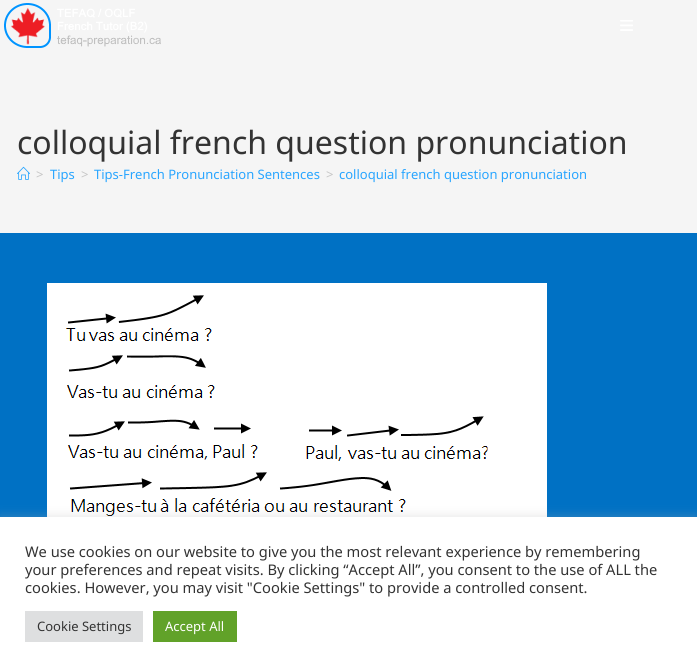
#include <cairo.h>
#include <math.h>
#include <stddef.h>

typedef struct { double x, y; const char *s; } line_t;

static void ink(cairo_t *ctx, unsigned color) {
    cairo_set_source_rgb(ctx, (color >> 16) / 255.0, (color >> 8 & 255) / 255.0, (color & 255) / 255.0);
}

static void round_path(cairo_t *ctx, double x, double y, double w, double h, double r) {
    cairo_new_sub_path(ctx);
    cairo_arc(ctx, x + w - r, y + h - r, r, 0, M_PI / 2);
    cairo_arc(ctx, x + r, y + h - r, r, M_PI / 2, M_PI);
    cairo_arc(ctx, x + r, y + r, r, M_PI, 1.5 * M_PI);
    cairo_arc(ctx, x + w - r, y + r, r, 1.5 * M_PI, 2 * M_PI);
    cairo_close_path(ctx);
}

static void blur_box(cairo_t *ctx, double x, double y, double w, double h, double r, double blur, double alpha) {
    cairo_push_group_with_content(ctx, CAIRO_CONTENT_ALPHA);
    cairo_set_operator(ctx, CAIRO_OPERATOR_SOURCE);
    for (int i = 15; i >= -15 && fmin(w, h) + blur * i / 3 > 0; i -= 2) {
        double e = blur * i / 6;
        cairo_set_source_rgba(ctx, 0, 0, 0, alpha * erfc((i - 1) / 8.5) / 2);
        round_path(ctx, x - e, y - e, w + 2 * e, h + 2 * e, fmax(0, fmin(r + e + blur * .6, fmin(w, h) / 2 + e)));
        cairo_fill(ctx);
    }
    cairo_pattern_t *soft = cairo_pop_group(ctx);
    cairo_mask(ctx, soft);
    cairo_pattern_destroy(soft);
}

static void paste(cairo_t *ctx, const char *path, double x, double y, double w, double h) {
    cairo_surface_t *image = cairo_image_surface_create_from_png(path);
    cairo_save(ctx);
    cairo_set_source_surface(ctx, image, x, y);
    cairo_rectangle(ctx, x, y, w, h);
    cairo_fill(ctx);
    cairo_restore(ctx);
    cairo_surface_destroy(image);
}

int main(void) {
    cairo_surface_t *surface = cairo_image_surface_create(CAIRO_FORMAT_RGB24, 697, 672);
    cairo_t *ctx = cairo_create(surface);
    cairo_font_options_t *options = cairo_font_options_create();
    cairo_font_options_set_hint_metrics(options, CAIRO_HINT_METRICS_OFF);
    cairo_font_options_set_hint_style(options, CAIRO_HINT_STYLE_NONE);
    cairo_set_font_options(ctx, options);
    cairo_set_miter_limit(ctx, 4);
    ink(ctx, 0x0071C4);
    cairo_paint(ctx);
    ink(ctx, 0xF5F5F5);
    cairo_rectangle(ctx, 0, 0, 697, 233);
    cairo_fill(ctx);
    paste(ctx, "media/1.png", 4, 3, 157, 45);
    paste(ctx, "media/2.png", 620, 20, 13, 11);
    cairo_select_font_face(ctx, "Noto Sans", CAIRO_FONT_SLANT_NORMAL, CAIRO_FONT_WEIGHT_NORMAL);
    cairo_set_font_size(ctx, 32);
    ink(ctx, 0x333333);
    cairo_move_to(ctx, 17, 154);
    cairo_show_text(ctx, "colloquial french question pronunciation");
    paste(ctx, "media/3.png", 17, 166, 13, 14);
    cairo_set_font_size(ctx, 13);
    ink(ctx, 0xC6C6C6);
    cairo_move_to(ctx, 36, 179);
    cairo_show_text(ctx, ">");
    ink(ctx, 0x28A5FF);
    cairo_move_to(ctx, 50, 179);
    cairo_show_text(ctx, "Tips");
    ink(ctx, 0xC6C6C6);
    cairo_move_to(ctx, 81, 179);
    cairo_show_text(ctx, ">");
    ink(ctx, 0x28A5FF);
    cairo_move_to(ctx, 94, 179);
    cairo_show_text(ctx, "Tips-French Pronunciation Sentences");
    ink(ctx, 0xC6C6C6);
    cairo_move_to(ctx, 326, 179);
    cairo_show_text(ctx, ">");
    ink(ctx, 0x28A5FF);
    cairo_move_to(ctx, 339, 179);
    cairo_show_text(ctx, "colloquial french question pronunciation");
    paste(ctx, "media/4.png", 47, 283, 500, 234);
    ink(ctx, 0xACABAB);
    blur_box(ctx, 0, 516, 697, 155, 0, 5, 0.3);
    ink(ctx, 0xFFFFFF);
    cairo_rectangle(ctx, 0, 517, 697, 155);
    cairo_fill(ctx);
    cairo_set_font_size(ctx, 14.65);
    ink(ctx, 0x333333);
    {
        static const line_t items[] = {
            {25, 557, "We use cookies on our website to give you the most relevant experience by remembering"},
            {25, 575, "your preferences and repeat visits. By clicking “Accept All”, you consent to the use of ALL the"},
            {25, 593, "cookies. However, you may visit \"Cookie Settings\" to provide a controlled consent."},
        };
        for (size_t i = 0; i < sizeof items / sizeof *items; i++) {
            cairo_move_to(ctx, items[i].x, items[i].y);
            cairo_show_text(ctx, items[i].s);
        }
    }
    ink(ctx, 0xDEDFE0);
    cairo_rectangle(ctx, 25, 611, 118, 31);
    cairo_fill(ctx);
    cairo_set_font_size(ctx, 13);
    ink(ctx, 0x333333);
    cairo_move_to(ctx, 37, 631);
    cairo_show_text(ctx, "Cookie Settings");
    ink(ctx, 0x61A229);
    cairo_rectangle(ctx, 153, 611, 84, 31);
    cairo_fill(ctx);
    ink(ctx, 0xFFFFFF);
    cairo_move_to(ctx, 165, 631);
    cairo_show_text(ctx, "Accept All");
    cairo_surface_write_to_png(surface, "image.png");
    cairo_font_options_destroy(options);
    cairo_destroy(ctx);
    cairo_surface_destroy(surface);
    return 0;
}
